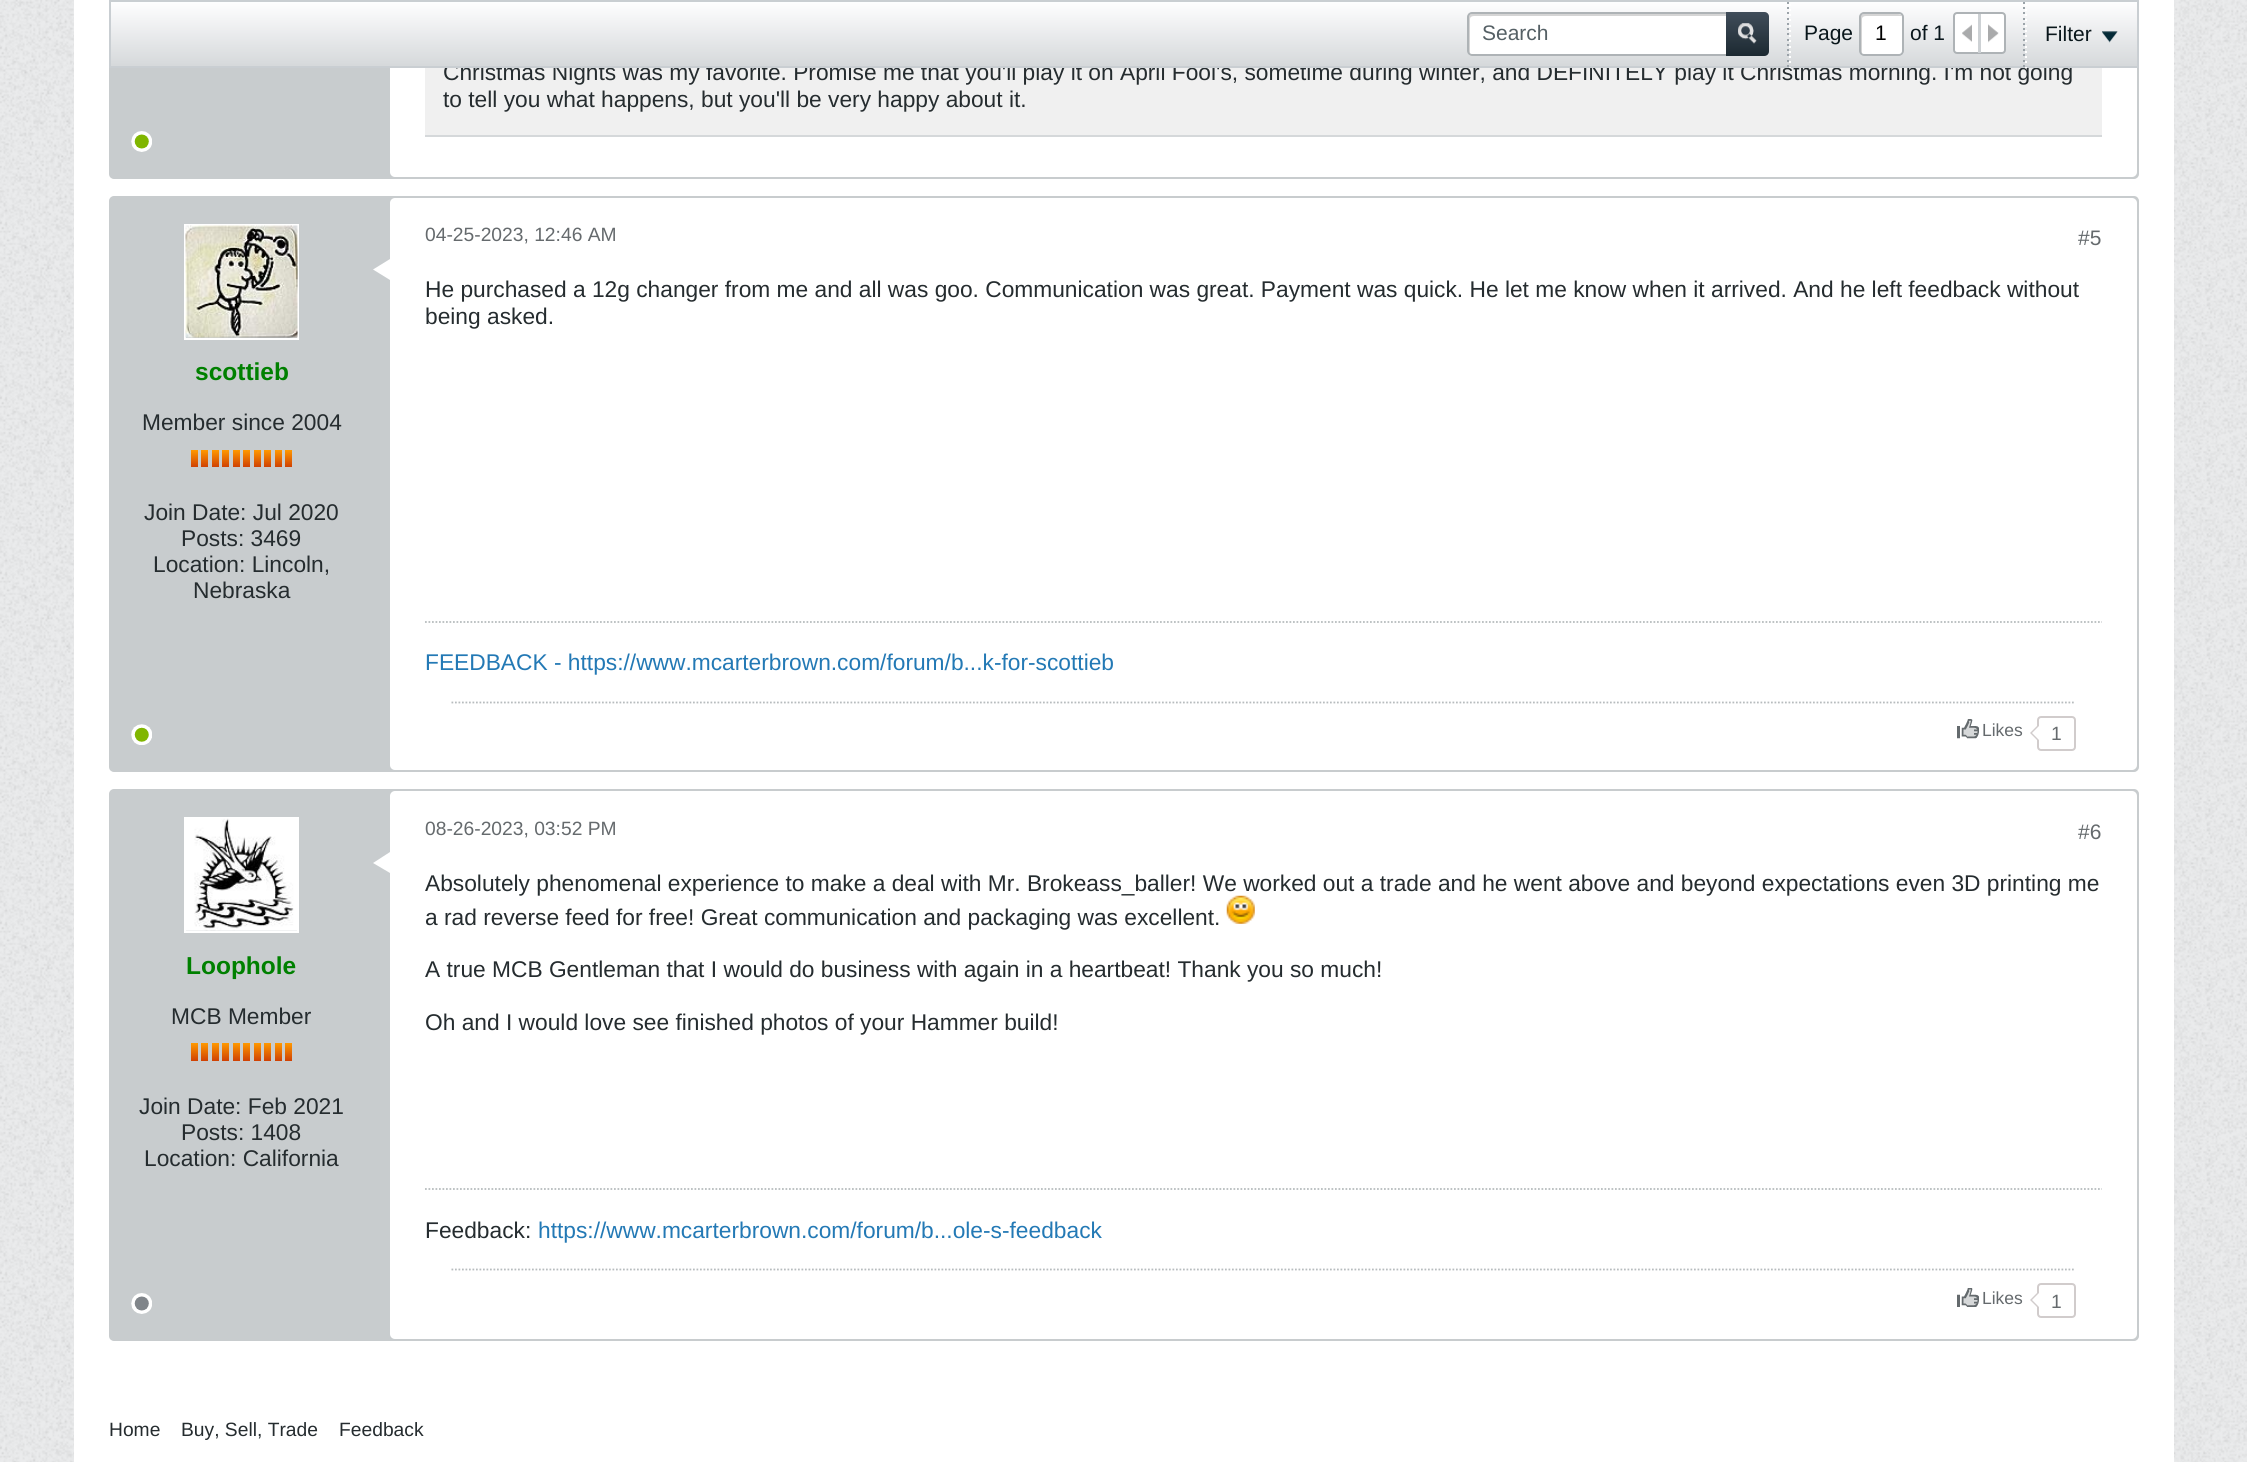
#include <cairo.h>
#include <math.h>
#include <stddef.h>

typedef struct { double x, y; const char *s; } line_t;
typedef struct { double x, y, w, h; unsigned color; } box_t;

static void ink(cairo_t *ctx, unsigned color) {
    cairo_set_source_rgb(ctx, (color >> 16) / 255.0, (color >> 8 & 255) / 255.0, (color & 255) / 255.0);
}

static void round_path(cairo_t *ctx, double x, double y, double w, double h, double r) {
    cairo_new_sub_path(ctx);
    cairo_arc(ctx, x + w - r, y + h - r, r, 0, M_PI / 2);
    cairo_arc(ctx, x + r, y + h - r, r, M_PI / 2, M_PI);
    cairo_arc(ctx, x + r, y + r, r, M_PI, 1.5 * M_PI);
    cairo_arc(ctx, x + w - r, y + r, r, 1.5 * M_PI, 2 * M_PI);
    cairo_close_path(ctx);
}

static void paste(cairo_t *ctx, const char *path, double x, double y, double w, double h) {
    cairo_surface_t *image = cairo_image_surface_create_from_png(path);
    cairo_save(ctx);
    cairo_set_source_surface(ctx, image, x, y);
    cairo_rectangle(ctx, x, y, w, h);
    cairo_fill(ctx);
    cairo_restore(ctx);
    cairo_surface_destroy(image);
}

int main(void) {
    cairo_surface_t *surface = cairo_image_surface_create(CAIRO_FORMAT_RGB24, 2247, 1462);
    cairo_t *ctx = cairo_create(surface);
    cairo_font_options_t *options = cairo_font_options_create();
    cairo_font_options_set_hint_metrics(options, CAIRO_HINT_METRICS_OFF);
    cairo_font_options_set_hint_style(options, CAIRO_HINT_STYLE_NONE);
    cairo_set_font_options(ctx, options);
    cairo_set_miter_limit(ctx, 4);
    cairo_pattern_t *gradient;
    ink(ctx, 0xEAEBEC);
    cairo_paint(ctx);
    paste(ctx, "media/1.png", 0, 0, 2247, 1462);
    ink(ctx, 0xFFFFFF);
    cairo_rectangle(ctx, 74, 0, 2100, 1462);
    cairo_fill(ctx);
    ink(ctx, 0xC8CCCE);
    round_path(ctx, 110, -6, 2028, 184, 4);
    cairo_fill_preserve(ctx);
    cairo_stroke(ctx);
    ink(ctx, 0xFFFFFF);
    round_path(ctx, 390, -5, 1747, 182, 5);
    cairo_fill(ctx);
    ink(ctx, 0xF0F0F0);
    cairo_rectangle(ctx, 425, 68, 1677, 67);
    cairo_fill(ctx);
    cairo_select_font_face(ctx, "Liberation Sans", CAIRO_FONT_SLANT_NORMAL, CAIRO_FONT_WEIGHT_NORMAL);
    cairo_set_font_size(ctx, 22.75);
    ink(ctx, 0x252C2F);
    cairo_move_to(ctx, 443, 80);
    cairo_show_text(ctx, "Christmas Nights was my favorite. Promise me that you'll play it on April Fool's, sometime during winter, and DEFINITELY play it Christmas morning. I'm not going");
    gradient = cairo_pattern_create_linear(1124, 1.7, 1124, 67);
    cairo_pattern_add_color_stop_rgba(gradient, 0, 0.996, 0.996, 1, 1);
    cairo_pattern_add_color_stop_rgba(gradient, 1, 0.835, 0.847, 0.855, 1);
    cairo_set_source(ctx, gradient);
    cairo_pattern_destroy(gradient);
    cairo_rectangle(ctx, 111, 2, 2026, 64);
    cairo_fill(ctx);
    cairo_rectangle(ctx, 110, 1, 2028, 66);
    ink(ctx, 0xC9CED2);
    cairo_stroke(ctx);
    ink(ctx, 0xFFFFFF);
    round_path(ctx, 1467, 12, 302, 44, 5);
    cairo_fill(ctx);
    ink(ctx, 0xD5D5D5);
    cairo_new_path(ctx);
    cairo_move_to(ctx, 1474, 16);
    cairo_line_to(ctx, 1768, 16);
    cairo_curve_to(ctx, 1767, 15, 1766, 14, 1764, 14);
    cairo_line_to(ctx, 1472, 14);
    cairo_curve_to(ctx, 1470, 14, 1468, 16, 1468, 18);
    cairo_line_to(ctx, 1468, 50);
    cairo_curve_to(ctx, 1468, 52, 1469, 53, 1470, 54);
    cairo_line_to(ctx, 1470, 52);
    cairo_line_to(ctx, 1470, 19);
    cairo_curve_to(ctx, 1470, 17, 1472, 16, 1474, 16);
    cairo_close_path(ctx);
    cairo_fill(ctx);
    round_path(ctx, 1468, 13, 300, 42, 4);
    ink(ctx, 0xAEB3B6);
    cairo_stroke(ctx);
    cairo_set_font_size(ctx, 21);
    ink(ctx, 0x556065);
    cairo_move_to(ctx, 1482, 40);
    cairo_show_text(ctx, "Search");
    gradient = cairo_pattern_create_linear(1747, 12, 1747, 56);
    cairo_pattern_add_color_stop_rgba(gradient, 0, 0.251, 0.302, 0.353, 1);
    cairo_pattern_add_color_stop_rgba(gradient, 1, 0.11, 0.161, 0.192, 1);
    cairo_set_source(ctx, gradient);
    cairo_pattern_destroy(gradient);
    cairo_new_path(ctx);
    cairo_move_to(ctx, 1726, 12);
    cairo_line_to(ctx, 1764, 12);
    cairo_curve_to(ctx, 1767, 12, 1769, 14, 1769, 17);
    cairo_line_to(ctx, 1769, 51);
    cairo_curve_to(ctx, 1769, 54, 1767, 56, 1764, 56);
    cairo_line_to(ctx, 1726, 56);
    cairo_close_path(ctx);
    cairo_fill(ctx);
    paste(ctx, "media/2.png", 1738, 23, 19, 21);
    {
        static const box_t items[] = {
            {1787, 2, 2, 2, 0x9BA3A9},
            {1787, 7, 2, 2, 0x9BA3A9},
            {1787, 12, 2, 2, 0x9BA3A9},
            {1787, 18, 2, 2, 0x9BA3A9},
            {1787, 23, 2, 2, 0x9BA3A9},
            {1787, 28, 2, 2, 0x9BA3A9},
            {1787, 33, 2, 2, 0x9BA3A9},
            {1787, 39, 2, 2, 0x9BA3A9},
            {1787, 44, 2, 2, 0x9BA3A9},
            {1787, 49, 2, 2, 0x9BA3A9},
            {1787, 54, 2, 2, 0x9BA3A9},
            {1787, 60, 2, 2, 0x9BA3A9},
            {1787, 65, 2, 2, 0x9BA3A9},
            {1789, 4, 2, 2, 0xFFFFFF},
            {1789, 9, 2, 2, 0xFFFFFF},
            {1789, 14, 2, 2, 0xFFFFFF},
            {1789, 19, 2, 2, 0xFFFFFF},
            {1789, 25, 2, 2, 0xFFFFFF},
            {1789, 30, 2, 2, 0xFFFFFF},
            {1789, 35, 2, 2, 0xFFFFFF},
            {1789, 40, 2, 2, 0xFFFFFF},
            {1789, 46, 2, 2, 0xFFFFFF},
            {1789, 51, 2, 2, 0xFFFFFF},
            {1789, 56, 2, 2, 0xFFFFFF},
            {1789, 61, 2, 2, 0xFFFFFF},
            {1789, 67, 2, 1, 0xFFFFFF},
        };
        for (size_t i = 0; i < sizeof items / sizeof *items; i++) {
            ink(ctx, items[i].color);
            cairo_rectangle(ctx, items[i].x, items[i].y, items[i].w, items[i].h);
            cairo_fill(ctx);
        }
    }
    ink(ctx, 0x09161B);
    cairo_move_to(ctx, 1804, 40);
    cairo_show_text(ctx, "Page");
    ink(ctx, 0xFFFFFF);
    round_path(ctx, 1859, 12, 45, 44, 5);
    cairo_fill(ctx);
    ink(ctx, 0xD5D5D5);
    cairo_new_path(ctx);
    cairo_move_to(ctx, 1866, 16);
    cairo_line_to(ctx, 1902, 16);
    cairo_curve_to(ctx, 1901, 15, 1900, 14, 1898, 14);
    cairo_line_to(ctx, 1864, 14);
    cairo_curve_to(ctx, 1862, 14, 1860, 16, 1860, 18);
    cairo_line_to(ctx, 1860, 50);
    cairo_curve_to(ctx, 1860, 52, 1861, 53, 1862, 54);
    cairo_line_to(ctx, 1862, 52);
    cairo_line_to(ctx, 1862, 19);
    cairo_curve_to(ctx, 1862, 17, 1864, 16, 1866, 16);
    cairo_close_path(ctx);
    cairo_fill(ctx);
    round_path(ctx, 1860, 13, 43, 42, 4);
    ink(ctx, 0xAEB3B6);
    cairo_stroke(ctx);
    ink(ctx, 0x000000);
    cairo_move_to(ctx, 1875, 40);
    cairo_show_text(ctx, "1");
    ink(ctx, 0x09161B);
    cairo_move_to(ctx, 1910, 40);
    cairo_show_text(ctx, "of 1");
    ink(ctx, 0xFFFFFF);
    round_path(ctx, 1954, 13, 51, 40, 3);
    cairo_fill_preserve(ctx);
    ink(ctx, 0xAEB3B6);
    cairo_stroke(ctx);
    ink(ctx, 0xCDD1D4);
    cairo_rectangle(ctx, 1978, 14, 3, 39);
    cairo_fill(ctx);
    paste(ctx, "media/3.png", 1962, 24, 10, 18);
    paste(ctx, "media/4.png", 1988, 24, 11, 19);
    {
        static const box_t items[] = {
            {2023, 2, 2, 2, 0x9BA3A9},
            {2023, 7, 2, 2, 0x9BA3A9},
            {2023, 12, 2, 2, 0x9BA3A9},
            {2023, 18, 2, 2, 0x9BA3A9},
            {2023, 23, 2, 2, 0x9BA3A9},
            {2023, 28, 2, 2, 0x9BA3A9},
            {2023, 33, 2, 2, 0x9BA3A9},
            {2023, 39, 2, 2, 0x9BA3A9},
            {2023, 44, 2, 2, 0x9BA3A9},
            {2023, 49, 2, 2, 0x9BA3A9},
            {2023, 54, 2, 2, 0x9BA3A9},
            {2023, 60, 2, 2, 0x9BA3A9},
            {2023, 65, 2, 2, 0x9BA3A9},
            {2025, 4, 2, 2, 0xFFFFFF},
            {2025, 9, 2, 2, 0xFFFFFF},
            {2025, 14, 2, 2, 0xFFFFFF},
            {2025, 19, 2, 2, 0xFFFFFF},
            {2025, 25, 2, 2, 0xFFFFFF},
            {2025, 30, 2, 2, 0xFFFFFF},
            {2025, 35, 2, 2, 0xFFFFFF},
            {2025, 40, 2, 2, 0xFFFFFF},
            {2025, 46, 2, 2, 0xFFFFFF},
            {2025, 51, 2, 2, 0xFFFFFF},
            {2025, 56, 2, 2, 0xFFFFFF},
            {2025, 61, 2, 2, 0xFFFFFF},
            {2025, 67, 2, 1, 0xFFFFFF},
        };
        for (size_t i = 0; i < sizeof items / sizeof *items; i++) {
            ink(ctx, items[i].color);
            cairo_rectangle(ctx, items[i].x, items[i].y, items[i].w, items[i].h);
            cairo_fill(ctx);
        }
    }
    ink(ctx, 0x09161B);
    cairo_move_to(ctx, 2045, 41);
    cairo_show_text(ctx, "Filter");
    paste(ctx, "media/5.png", 2102, 31, 16, 12);
    ink(ctx, 0xD5D8DA);
    cairo_rectangle(ctx, 425, 135, 1677, 2);
    cairo_fill(ctx);
    cairo_set_font_size(ctx, 22.75);
    ink(ctx, 0x252C2F);
    cairo_move_to(ctx, 443, 107);
    cairo_show_text(ctx, "to tell you what happens, but you'll be very happy about it.");
    paste(ctx, "media/6.png", 131, 131, 21, 21);
    ink(ctx, 0xC8CCCE);
    round_path(ctx, 110, 197, 2028, 574, 4);
    cairo_fill_preserve(ctx);
    cairo_stroke(ctx);
    cairo_rectangle(ctx, 185, 225, 113, 114);
    ink(ctx, 0xFFFFFF);
    cairo_stroke(ctx);
    paste(ctx, "media/7.png", 185, 225, 113, 113);
    cairo_select_font_face(ctx, "Liberation Sans", CAIRO_FONT_SLANT_NORMAL, CAIRO_FONT_WEIGHT_BOLD);
    cairo_set_font_size(ctx, 24.5);
    ink(ctx, 0x008000);
    cairo_move_to(ctx, 195, 380);
    cairo_show_text(ctx, "scottieb");
    cairo_select_font_face(ctx, "Liberation Sans", CAIRO_FONT_SLANT_NORMAL, CAIRO_FONT_WEIGHT_NORMAL);
    cairo_set_font_size(ctx, 22.75);
    ink(ctx, 0x252C2F);
    cairo_move_to(ctx, 142, 430);
    cairo_show_text(ctx, "Member since 2004");
    gradient = cairo_pattern_create_linear(194, 450, 194, 467);
    cairo_pattern_add_color_stop_rgba(gradient, 0, 1, 0.6, 0, 1);
    cairo_pattern_add_color_stop_rgba(gradient, 1, 0.812, 0.255, 0.016, 1);
    cairo_set_source(ctx, gradient);
    cairo_pattern_destroy(gradient);
    cairo_rectangle(ctx, 191, 450, 7, 17);
    cairo_fill(ctx);
    gradient = cairo_pattern_create_linear(205, 450, 205, 467);
    cairo_pattern_add_color_stop_rgba(gradient, 0, 1, 0.6, 0, 1);
    cairo_pattern_add_color_stop_rgba(gradient, 1, 0.812, 0.255, 0.016, 1);
    cairo_set_source(ctx, gradient);
    cairo_pattern_destroy(gradient);
    cairo_rectangle(ctx, 201, 450, 7, 17);
    cairo_fill(ctx);
    gradient = cairo_pattern_create_linear(215, 450, 215, 467);
    cairo_pattern_add_color_stop_rgba(gradient, 0, 1, 0.6, 0, 1);
    cairo_pattern_add_color_stop_rgba(gradient, 1, 0.812, 0.255, 0.016, 1);
    cairo_set_source(ctx, gradient);
    cairo_pattern_destroy(gradient);
    cairo_rectangle(ctx, 212, 450, 7, 17);
    cairo_fill(ctx);
    gradient = cairo_pattern_create_linear(226, 450, 226, 467);
    cairo_pattern_add_color_stop_rgba(gradient, 0, 1, 0.6, 0, 1);
    cairo_pattern_add_color_stop_rgba(gradient, 1, 0.812, 0.255, 0.016, 1);
    cairo_set_source(ctx, gradient);
    cairo_pattern_destroy(gradient);
    cairo_rectangle(ctx, 222, 450, 7, 17);
    cairo_fill(ctx);
    gradient = cairo_pattern_create_linear(236, 450, 236, 467);
    cairo_pattern_add_color_stop_rgba(gradient, 0, 1, 0.6, 0, 1);
    cairo_pattern_add_color_stop_rgba(gradient, 1, 0.812, 0.255, 0.016, 1);
    cairo_set_source(ctx, gradient);
    cairo_pattern_destroy(gradient);
    cairo_rectangle(ctx, 233, 450, 7, 17);
    cairo_fill(ctx);
    gradient = cairo_pattern_create_linear(247, 450, 247, 467);
    cairo_pattern_add_color_stop_rgba(gradient, 0, 1, 0.6, 0, 1);
    cairo_pattern_add_color_stop_rgba(gradient, 1, 0.812, 0.255, 0.016, 1);
    cairo_set_source(ctx, gradient);
    cairo_pattern_destroy(gradient);
    cairo_rectangle(ctx, 243, 450, 7, 17);
    cairo_fill(ctx);
    gradient = cairo_pattern_create_linear(257, 450, 257, 467);
    cairo_pattern_add_color_stop_rgba(gradient, 0, 1, 0.6, 0, 1);
    cairo_pattern_add_color_stop_rgba(gradient, 1, 0.812, 0.255, 0.016, 1);
    cairo_set_source(ctx, gradient);
    cairo_pattern_destroy(gradient);
    cairo_rectangle(ctx, 254, 450, 7, 17);
    cairo_fill(ctx);
    gradient = cairo_pattern_create_linear(268, 450, 268, 467);
    cairo_pattern_add_color_stop_rgba(gradient, 0, 1, 0.6, 0, 1);
    cairo_pattern_add_color_stop_rgba(gradient, 1, 0.812, 0.255, 0.016, 1);
    cairo_set_source(ctx, gradient);
    cairo_pattern_destroy(gradient);
    cairo_rectangle(ctx, 264, 450, 7, 17);
    cairo_fill(ctx);
    gradient = cairo_pattern_create_linear(278, 450, 278, 467);
    cairo_pattern_add_color_stop_rgba(gradient, 0, 1, 0.6, 0, 1);
    cairo_pattern_add_color_stop_rgba(gradient, 1, 0.812, 0.255, 0.016, 1);
    cairo_set_source(ctx, gradient);
    cairo_pattern_destroy(gradient);
    cairo_rectangle(ctx, 275, 450, 7, 17);
    cairo_fill(ctx);
    gradient = cairo_pattern_create_linear(289, 450, 289, 467);
    cairo_pattern_add_color_stop_rgba(gradient, 0, 1, 0.6, 0, 1);
    cairo_pattern_add_color_stop_rgba(gradient, 1, 0.812, 0.255, 0.016, 1);
    cairo_set_source(ctx, gradient);
    cairo_pattern_destroy(gradient);
    cairo_rectangle(ctx, 285, 450, 7, 17);
    cairo_fill(ctx);
    ink(ctx, 0x252C2F);
    {
        static const line_t items[] = {
            {144, 520, "Join Date: Jul 2020"},
            {181, 546, "Posts: 3469"},
            {153, 572, "Location: Lincoln,"},
            {193, 598, "Nebraska"},
        };
        for (size_t i = 0; i < sizeof items / sizeof *items; i++) {
            cairo_move_to(ctx, items[i].x, items[i].y);
            cairo_show_text(ctx, items[i].s);
        }
    }
    paste(ctx, "media/8.png", 131, 724, 21, 21);
    ink(ctx, 0xFFFFFF);
    round_path(ctx, 390, 198, 1747, 572, 5);
    cairo_fill(ctx);
    cairo_new_path(ctx);
    cairo_move_to(ctx, 390, 259);
    cairo_line_to(ctx, 390, 280);
    cairo_line_to(ctx, 373, 269.5);
    cairo_close_path(ctx);
    cairo_fill(ctx);
    cairo_set_font_size(ctx, 19.25);
    ink(ctx, 0x656A6D);
    cairo_move_to(ctx, 425, 241);
    cairo_show_text(ctx, "04-25-2023, 12:46 AM");
    cairo_set_font_size(ctx, 21);
    cairo_move_to(ctx, 2078, 245);
    cairo_show_text(ctx, "#5");
    cairo_set_font_size(ctx, 22.75);
    ink(ctx, 0x252C2F);
    cairo_move_to(ctx, 425, 297);
    cairo_show_text(ctx, "He purchased a 12g changer from me and all was goo. Communication was great. Payment was quick. He let me know when it arrived. And he left feedback without");
    cairo_move_to(ctx, 425, 324);
    cairo_show_text(ctx, "being asked.");
    cairo_new_path(ctx);
    cairo_move_to(ctx, 425, 622);
    cairo_line_to(ctx, 2102, 622);
    ink(ctx, 0xB7BCBE);
    cairo_set_line_width(ctx, 1.8);
    cairo_set_dash(ctx, (double[]){1.75, 1.75}, 2, 0);
    cairo_stroke(ctx);
    ink(ctx, 0x2379B5);
    cairo_move_to(ctx, 425, 670);
    cairo_show_text(ctx, "FEEDBACK - https://www.mcarterbrown.com/forum/b...k-for-scottieb");
    cairo_new_path(ctx);
    cairo_move_to(ctx, 451.5, 702.5);
    cairo_line_to(ctx, 2075.5, 702.5);
    ink(ctx, 0xB7BCBE);
    cairo_stroke(ctx);
    paste(ctx, "media/9.png", 1957, 719, 22, 20);
    cairo_set_font_size(ctx, 17.5);
    ink(ctx, 0x656A6D);
    cairo_move_to(ctx, 1982, 736);
    cairo_show_text(ctx, "Likes");
    round_path(ctx, 2038, 717, 37, 33, 3);
    ink(ctx, 0xD1CCCC);
    cairo_set_line_width(ctx, 2);
    cairo_set_dash(ctx, NULL, 0, 0);
    cairo_stroke(ctx);
    cairo_new_path(ctx);
    cairo_move_to(ctx, 2037, 726);
    cairo_line_to(ctx, 2037, 740);
    cairo_line_to(ctx, 2030, 733);
    cairo_close_path(ctx);
    cairo_fill(ctx);
    ink(ctx, 0xFFFFFF);
    cairo_new_path(ctx);
    cairo_move_to(ctx, 2039, 726);
    cairo_line_to(ctx, 2039, 740);
    cairo_line_to(ctx, 2032, 733);
    cairo_close_path(ctx);
    cairo_fill(ctx);
    cairo_set_font_size(ctx, 19.25);
    ink(ctx, 0x656A6D);
    cairo_move_to(ctx, 2051, 740);
    cairo_show_text(ctx, "1");
    ink(ctx, 0xC8CCCE);
    round_path(ctx, 110, 790, 2028, 550, 4);
    cairo_fill_preserve(ctx);
    cairo_stroke(ctx);
    cairo_rectangle(ctx, 185, 818, 113, 114);
    ink(ctx, 0xFFFFFF);
    cairo_stroke(ctx);
    paste(ctx, "media/10.png", 186, 818, 111, 113);
    cairo_select_font_face(ctx, "Liberation Sans", CAIRO_FONT_SLANT_NORMAL, CAIRO_FONT_WEIGHT_BOLD);
    cairo_set_font_size(ctx, 24.5);
    ink(ctx, 0x008000);
    cairo_move_to(ctx, 186, 974);
    cairo_show_text(ctx, "Loophole");
    cairo_select_font_face(ctx, "Liberation Sans", CAIRO_FONT_SLANT_NORMAL, CAIRO_FONT_WEIGHT_NORMAL);
    cairo_set_font_size(ctx, 22.75);
    ink(ctx, 0x252C2F);
    cairo_move_to(ctx, 171, 1024);
    cairo_show_text(ctx, "MCB Member");
    gradient = cairo_pattern_create_linear(194, 1043, 194, 1061);
    cairo_pattern_add_color_stop_rgba(gradient, 0, 1, 0.6, 0, 1);
    cairo_pattern_add_color_stop_rgba(gradient, 1, 0.812, 0.255, 0.016, 1);
    cairo_set_source(ctx, gradient);
    cairo_pattern_destroy(gradient);
    cairo_rectangle(ctx, 191, 1043, 7, 18);
    cairo_fill(ctx);
    gradient = cairo_pattern_create_linear(205, 1043, 205, 1061);
    cairo_pattern_add_color_stop_rgba(gradient, 0, 1, 0.6, 0, 1);
    cairo_pattern_add_color_stop_rgba(gradient, 1, 0.812, 0.255, 0.016, 1);
    cairo_set_source(ctx, gradient);
    cairo_pattern_destroy(gradient);
    cairo_rectangle(ctx, 201, 1043, 7, 18);
    cairo_fill(ctx);
    gradient = cairo_pattern_create_linear(215, 1043, 215, 1061);
    cairo_pattern_add_color_stop_rgba(gradient, 0, 1, 0.6, 0, 1);
    cairo_pattern_add_color_stop_rgba(gradient, 1, 0.812, 0.255, 0.016, 1);
    cairo_set_source(ctx, gradient);
    cairo_pattern_destroy(gradient);
    cairo_rectangle(ctx, 212, 1043, 7, 18);
    cairo_fill(ctx);
    gradient = cairo_pattern_create_linear(226, 1043, 226, 1061);
    cairo_pattern_add_color_stop_rgba(gradient, 0, 1, 0.6, 0, 1);
    cairo_pattern_add_color_stop_rgba(gradient, 1, 0.812, 0.255, 0.016, 1);
    cairo_set_source(ctx, gradient);
    cairo_pattern_destroy(gradient);
    cairo_rectangle(ctx, 222, 1043, 7, 18);
    cairo_fill(ctx);
    gradient = cairo_pattern_create_linear(236, 1043, 236, 1061);
    cairo_pattern_add_color_stop_rgba(gradient, 0, 1, 0.6, 0, 1);
    cairo_pattern_add_color_stop_rgba(gradient, 1, 0.812, 0.255, 0.016, 1);
    cairo_set_source(ctx, gradient);
    cairo_pattern_destroy(gradient);
    cairo_rectangle(ctx, 233, 1043, 7, 18);
    cairo_fill(ctx);
    gradient = cairo_pattern_create_linear(247, 1043, 247, 1061);
    cairo_pattern_add_color_stop_rgba(gradient, 0, 1, 0.6, 0, 1);
    cairo_pattern_add_color_stop_rgba(gradient, 1, 0.812, 0.255, 0.016, 1);
    cairo_set_source(ctx, gradient);
    cairo_pattern_destroy(gradient);
    cairo_rectangle(ctx, 243, 1043, 7, 18);
    cairo_fill(ctx);
    gradient = cairo_pattern_create_linear(257, 1043, 257, 1061);
    cairo_pattern_add_color_stop_rgba(gradient, 0, 1, 0.6, 0, 1);
    cairo_pattern_add_color_stop_rgba(gradient, 1, 0.812, 0.255, 0.016, 1);
    cairo_set_source(ctx, gradient);
    cairo_pattern_destroy(gradient);
    cairo_rectangle(ctx, 254, 1043, 7, 18);
    cairo_fill(ctx);
    gradient = cairo_pattern_create_linear(268, 1043, 268, 1061);
    cairo_pattern_add_color_stop_rgba(gradient, 0, 1, 0.6, 0, 1);
    cairo_pattern_add_color_stop_rgba(gradient, 1, 0.812, 0.255, 0.016, 1);
    cairo_set_source(ctx, gradient);
    cairo_pattern_destroy(gradient);
    cairo_rectangle(ctx, 264, 1043, 7, 18);
    cairo_fill(ctx);
    gradient = cairo_pattern_create_linear(278, 1043, 278, 1061);
    cairo_pattern_add_color_stop_rgba(gradient, 0, 1, 0.6, 0, 1);
    cairo_pattern_add_color_stop_rgba(gradient, 1, 0.812, 0.255, 0.016, 1);
    cairo_set_source(ctx, gradient);
    cairo_pattern_destroy(gradient);
    cairo_rectangle(ctx, 275, 1043, 7, 18);
    cairo_fill(ctx);
    gradient = cairo_pattern_create_linear(289, 1043, 289, 1061);
    cairo_pattern_add_color_stop_rgba(gradient, 0, 1, 0.6, 0, 1);
    cairo_pattern_add_color_stop_rgba(gradient, 1, 0.812, 0.255, 0.016, 1);
    cairo_set_source(ctx, gradient);
    cairo_pattern_destroy(gradient);
    cairo_rectangle(ctx, 285, 1043, 7, 18);
    cairo_fill(ctx);
    ink(ctx, 0x252C2F);
    {
        static const line_t items[] = {
            {139, 1114, "Join Date: Feb 2021"},
            {181, 1140, "Posts: 1408"},
            {144, 1166, "Location: California"},
        };
        for (size_t i = 0; i < sizeof items / sizeof *items; i++) {
            cairo_move_to(ctx, items[i].x, items[i].y);
            cairo_show_text(ctx, items[i].s);
        }
    }
    paste(ctx, "media/11.png", 131, 1293, 21, 21);
    ink(ctx, 0xFFFFFF);
    round_path(ctx, 390, 791, 1747, 548, 5);
    cairo_fill(ctx);
    cairo_new_path(ctx);
    cairo_move_to(ctx, 390, 852);
    cairo_line_to(ctx, 390, 873);
    cairo_line_to(ctx, 373, 863);
    cairo_close_path(ctx);
    cairo_fill(ctx);
    cairo_set_font_size(ctx, 19.25);
    ink(ctx, 0x656A6D);
    cairo_move_to(ctx, 425, 835);
    cairo_show_text(ctx, "08-26-2023, 03:52 PM");
    cairo_set_font_size(ctx, 21);
    cairo_move_to(ctx, 2078, 839);
    cairo_show_text(ctx, "#6");
    cairo_set_font_size(ctx, 22.75);
    ink(ctx, 0x252C2F);
    cairo_move_to(ctx, 425, 891);
    cairo_show_text(ctx, "Absolutely phenomenal experience to make a deal with Mr. Brokeass_baller! We worked out a trade and he went above and beyond expectations even 3D printing me");
    cairo_move_to(ctx, 425, 925);
    cairo_show_text(ctx, "a rad reverse feed for free! Great communication and packaging was excellent.");
    paste(ctx, "media/12.png", 1226, 895, 29, 29);
    cairo_move_to(ctx, 425, 977);
    cairo_show_text(ctx, "A true MCB Gentleman that I would do business with again in a heartbeat! Thank you so much!");
    cairo_move_to(ctx, 425, 1030);
    cairo_show_text(ctx, "Oh and I would love see finished photos of your Hammer build!");
    cairo_new_path(ctx);
    cairo_move_to(ctx, 425, 1189);
    cairo_line_to(ctx, 2102, 1189);
    ink(ctx, 0xB7BCBE);
    cairo_set_line_width(ctx, 1.8);
    cairo_set_dash(ctx, (double[]){1.75, 1.75}, 2, 0);
    cairo_stroke(ctx);
    ink(ctx, 0x252C2F);
    cairo_move_to(ctx, 425, 1238);
    cairo_show_text(ctx, "Feedback:");
    ink(ctx, 0x2379B5);
    cairo_move_to(ctx, 538, 1238);
    cairo_show_text(ctx, "https://www.mcarterbrown.com/forum/b...ole-s-feedback");
    cairo_new_path(ctx);
    cairo_move_to(ctx, 451.5, 1269.5);
    cairo_line_to(ctx, 2075.5, 1269.5);
    ink(ctx, 0xB7BCBE);
    cairo_stroke(ctx);
    paste(ctx, "media/13.png", 1957, 1288, 22, 19);
    cairo_set_font_size(ctx, 17.5);
    ink(ctx, 0x656A6D);
    cairo_move_to(ctx, 1982, 1304);
    cairo_show_text(ctx, "Likes");
    round_path(ctx, 2038, 1284, 37, 33, 3);
    ink(ctx, 0xD1CCCC);
    cairo_set_line_width(ctx, 2);
    cairo_set_dash(ctx, NULL, 0, 0);
    cairo_stroke(ctx);
    cairo_new_path(ctx);
    cairo_move_to(ctx, 2037, 1293);
    cairo_line_to(ctx, 2037, 1307);
    cairo_line_to(ctx, 2030, 1300);
    cairo_close_path(ctx);
    cairo_fill(ctx);
    ink(ctx, 0xFFFFFF);
    cairo_new_path(ctx);
    cairo_move_to(ctx, 2039, 1293);
    cairo_line_to(ctx, 2039, 1307);
    cairo_line_to(ctx, 2032, 1300);
    cairo_close_path(ctx);
    cairo_fill(ctx);
    cairo_set_font_size(ctx, 19.25);
    ink(ctx, 0x656A6D);
    cairo_move_to(ctx, 2051, 1308);
    cairo_show_text(ctx, "1");
    ink(ctx, 0x252C2F);
    {
        static const line_t items[] = {
            {109, 1436, "Home"},
            {181, 1436, "Buy, Sell, Trade"},
            {339, 1436, "Feedback"},
        };
        for (size_t i = 0; i < sizeof items / sizeof *items; i++) {
            cairo_move_to(ctx, items[i].x, items[i].y);
            cairo_show_text(ctx, items[i].s);
        }
    }
    cairo_surface_write_to_png(surface, "image.png");
    cairo_font_options_destroy(options);
    cairo_destroy(ctx);
    cairo_surface_destroy(surface);
    return 0;
}
